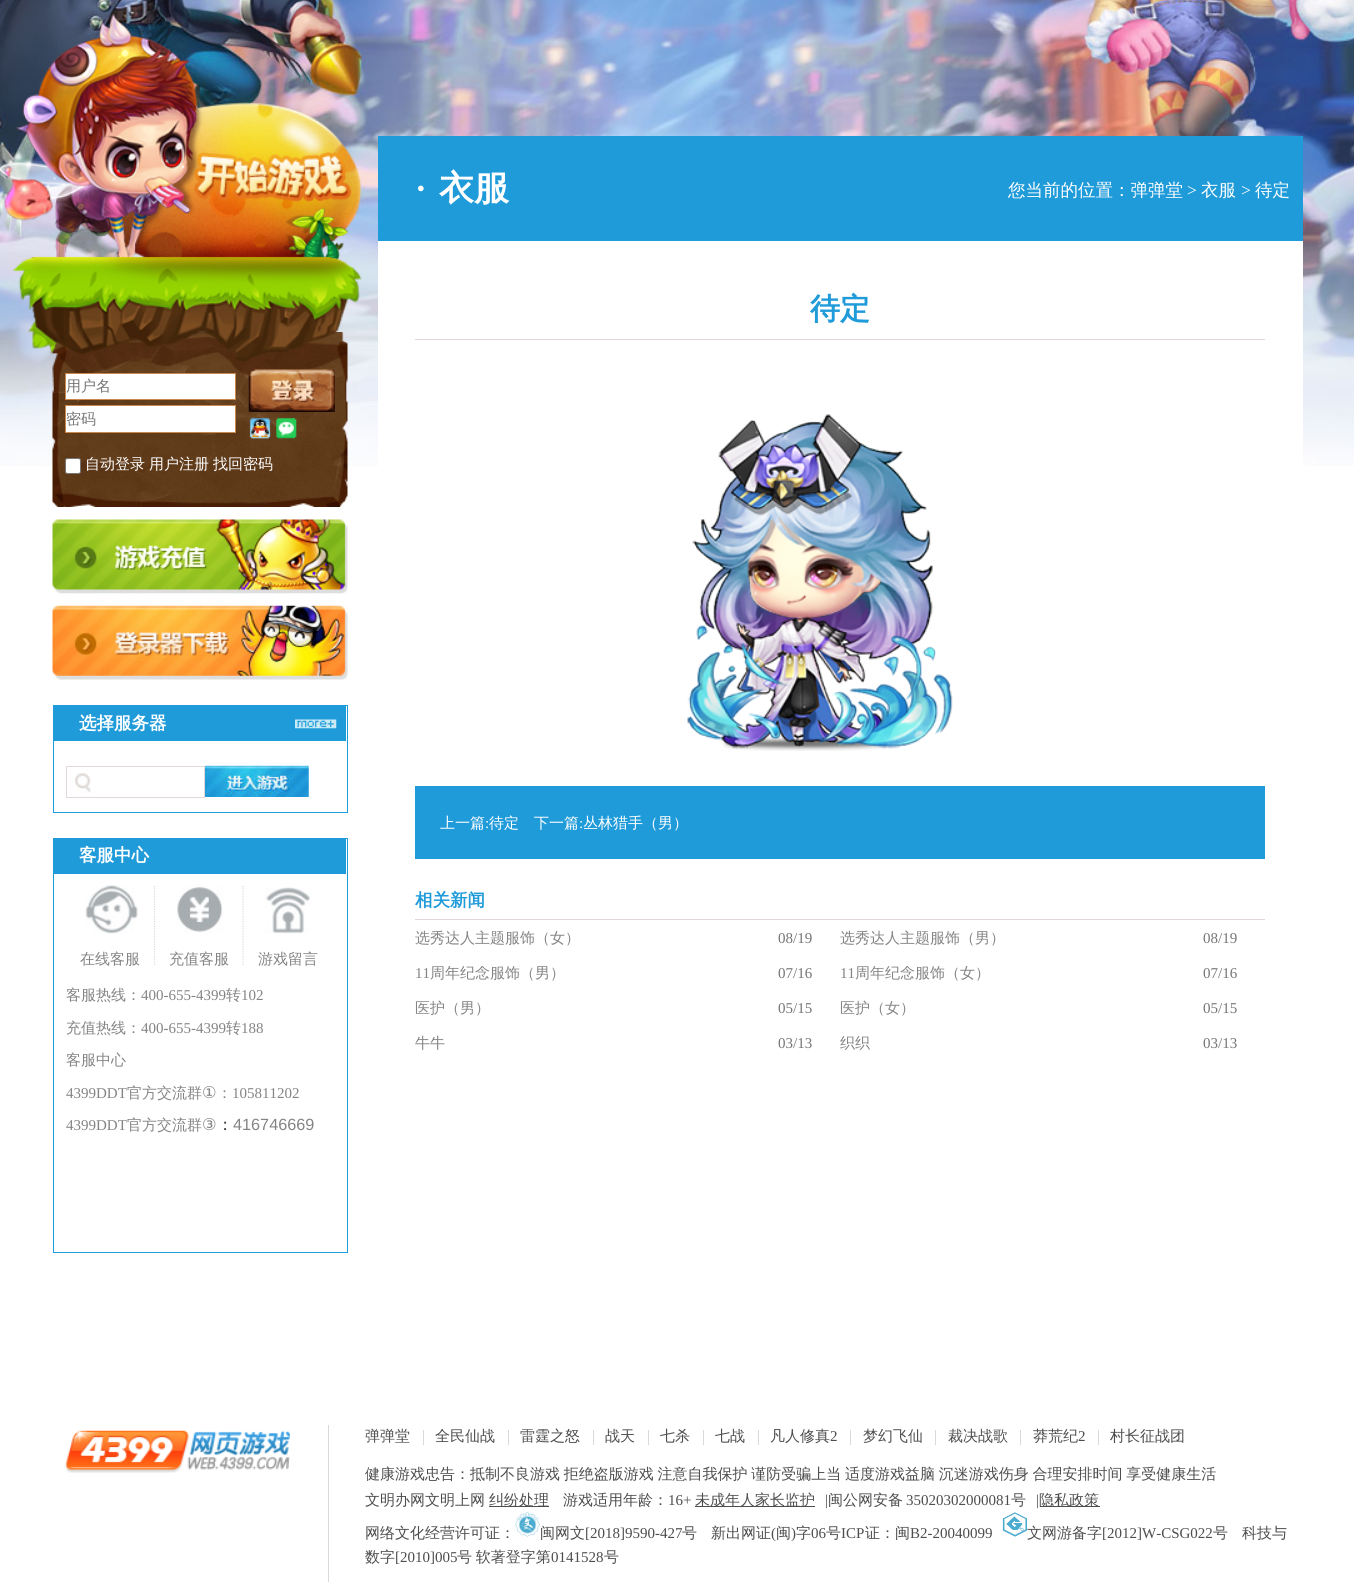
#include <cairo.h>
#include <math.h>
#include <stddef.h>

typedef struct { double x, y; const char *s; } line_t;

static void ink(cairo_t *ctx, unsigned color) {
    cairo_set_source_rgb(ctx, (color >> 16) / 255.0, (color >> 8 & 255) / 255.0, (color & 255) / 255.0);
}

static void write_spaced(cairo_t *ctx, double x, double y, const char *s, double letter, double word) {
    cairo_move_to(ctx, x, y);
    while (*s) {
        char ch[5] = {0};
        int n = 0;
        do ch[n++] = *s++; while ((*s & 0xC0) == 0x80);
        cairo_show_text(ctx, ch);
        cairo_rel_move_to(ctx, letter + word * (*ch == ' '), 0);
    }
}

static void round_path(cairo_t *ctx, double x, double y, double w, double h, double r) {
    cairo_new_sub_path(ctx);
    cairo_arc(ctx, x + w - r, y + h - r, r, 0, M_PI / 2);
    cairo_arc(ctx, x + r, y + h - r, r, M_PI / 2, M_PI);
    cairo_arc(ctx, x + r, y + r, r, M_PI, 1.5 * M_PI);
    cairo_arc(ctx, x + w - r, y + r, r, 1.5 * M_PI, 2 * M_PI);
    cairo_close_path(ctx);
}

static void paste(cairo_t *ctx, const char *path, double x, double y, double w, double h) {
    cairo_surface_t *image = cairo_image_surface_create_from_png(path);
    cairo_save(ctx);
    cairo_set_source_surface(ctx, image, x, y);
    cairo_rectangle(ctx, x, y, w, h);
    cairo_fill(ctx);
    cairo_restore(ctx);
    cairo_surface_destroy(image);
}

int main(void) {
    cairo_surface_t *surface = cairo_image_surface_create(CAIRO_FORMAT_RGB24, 1354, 1582);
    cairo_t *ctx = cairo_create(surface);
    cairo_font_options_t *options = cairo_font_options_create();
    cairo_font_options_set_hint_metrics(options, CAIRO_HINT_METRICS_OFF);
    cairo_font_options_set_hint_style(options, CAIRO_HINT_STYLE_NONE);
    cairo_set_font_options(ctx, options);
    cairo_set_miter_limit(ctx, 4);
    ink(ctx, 0xFFFFFF);
    cairo_paint(ctx);
    paste(ctx, "media/1.png", 0, 0, 1354, 466);
    paste(ctx, "media/3.png", 52, 60, 1202, 62);
    paste(ctx, "media/2.png", 86, 13, 1217, 48);
    paste(ctx, "media/5.png", 52, 332, 296, 175);
    paste(ctx, "media/4.png", 0, 13, 362, 349);
    ink(ctx, 0xFFFFFF);
    cairo_rectangle(ctx, 65.5, 373.5, 170, 26);
    cairo_fill_preserve(ctx);
    ink(ctx, 0xCA884D);
    cairo_set_line_width(ctx, 1);
    cairo_stroke(ctx);
    cairo_select_font_face(ctx, "WenQuanYi Zen Hei Medium", CAIRO_FONT_SLANT_NORMAL, CAIRO_FONT_WEIGHT_NORMAL);
    cairo_set_font_size(ctx, 15);
    ink(ctx, 0x757575);
    cairo_move_to(ctx, 66, 391);
    cairo_show_text(ctx, "用户名");
    ink(ctx, 0xFFFFFF);
    cairo_rectangle(ctx, 65.5, 405.5, 170, 27);
    cairo_fill_preserve(ctx);
    ink(ctx, 0xCA884D);
    cairo_stroke(ctx);
    ink(ctx, 0x757575);
    cairo_move_to(ctx, 66, 424);
    cairo_show_text(ctx, "密码");
    paste(ctx, "media/6.png", 248, 369, 87, 43);
    paste(ctx, "media/7.png", 249, 418, 22, 21);
    paste(ctx, "media/8.png", 276, 418, 21, 21);
    ink(ctx, 0xFFFFFF);
    round_path(ctx, 65.5, 458.5, 15, 15, 2);
    cairo_fill_preserve(ctx);
    ink(ctx, 0x767676);
    cairo_stroke(ctx);
    ink(ctx, 0xFFFFFF);
    {
        static const line_t items[] = {
            {85, 469, "自动登录"},
            {149, 469, "用户注册"},
            {213, 469, "找回密码"},
        };
        for (size_t i = 0; i < sizeof items / sizeof *items; i++) {
            cairo_move_to(ctx, items[i].x, items[i].y);
            cairo_show_text(ctx, items[i].s);
        }
    }
    paste(ctx, "media/9.png", 52, 519, 296, 75);
    paste(ctx, "media/10.png", 52, 605, 296, 75);
    cairo_rectangle(ctx, 53.5, 705.5, 294, 107);
    ink(ctx, 0x209BDA);
    cairo_stroke(ctx);
    cairo_rectangle(ctx, 54, 706, 292, 35);
    cairo_fill(ctx);
    cairo_select_font_face(ctx, "WenQuanYi Zen Hei", CAIRO_FONT_SLANT_NORMAL, CAIRO_FONT_WEIGHT_BOLD);
    cairo_set_font_size(ctx, 17.5);
    ink(ctx, 0xFFFFFF);
    cairo_move_to(ctx, 79, 729);
    cairo_show_text(ctx, "选择服务器");
    paste(ctx, "media/11.png", 295, 719, 42, 10);
    paste(ctx, "media/12.png", 75, 773, 16, 20);
    cairo_rectangle(ctx, 66.5, 766.5, 138, 31);
    ink(ctx, 0xE0D9D7);
    cairo_stroke(ctx);
    paste(ctx, "media/13.png", 205, 765, 104, 32);
    cairo_rectangle(ctx, 53.5, 838.5, 294, 414);
    ink(ctx, 0x209BDA);
    cairo_stroke(ctx);
    cairo_rectangle(ctx, 54, 839, 292, 35);
    cairo_fill(ctx);
    ink(ctx, 0xFFFFFF);
    cairo_move_to(ctx, 79, 861);
    cairo_show_text(ctx, "客服中心");
    cairo_new_path(ctx);
    cairo_move_to(ctx, 154.5, 886);
    cairo_line_to(ctx, 154.5, 966);
    ink(ctx, 0xE0D9D7);
    cairo_set_line_width(ctx, 1.2);
    cairo_set_dash(ctx, (double[]){1.25, 1.25}, 2, 0);
    cairo_stroke(ctx);
    paste(ctx, "media/14.png", 85, 885, 53, 49);
    cairo_select_font_face(ctx, "WenQuanYi Zen Hei Medium", CAIRO_FONT_SLANT_NORMAL, CAIRO_FONT_WEIGHT_NORMAL);
    cairo_set_font_size(ctx, 15);
    ink(ctx, 0x848484);
    cairo_move_to(ctx, 80, 964);
    cairo_show_text(ctx, "在线客服");
    cairo_new_path(ctx);
    cairo_move_to(ctx, 243, 886);
    cairo_line_to(ctx, 243, 966);
    ink(ctx, 0xE0D9D7);
    cairo_stroke(ctx);
    paste(ctx, "media/15.png", 177, 886, 46, 47);
    ink(ctx, 0x848484);
    cairo_move_to(ctx, 169, 964);
    cairo_show_text(ctx, "充值客服");
    paste(ctx, "media/16.png", 265, 887, 46, 47);
    cairo_move_to(ctx, 258, 964);
    cairo_show_text(ctx, "游戏留言");
    cairo_move_to(ctx, 66, 1000);
    cairo_show_text(ctx, "客服热线：");
    cairo_select_font_face(ctx, "Liberation Serif", CAIRO_FONT_SLANT_NORMAL, CAIRO_FONT_WEIGHT_NORMAL);
    cairo_move_to(ctx, 141, 1000);
    cairo_show_text(ctx, "400-655-4399");
    cairo_select_font_face(ctx, "WenQuanYi Zen Hei Medium", CAIRO_FONT_SLANT_NORMAL, CAIRO_FONT_WEIGHT_NORMAL);
    cairo_move_to(ctx, 226, 1000);
    cairo_show_text(ctx, "转");
    cairo_select_font_face(ctx, "Liberation Serif", CAIRO_FONT_SLANT_NORMAL, CAIRO_FONT_WEIGHT_NORMAL);
    cairo_move_to(ctx, 241, 1000);
    cairo_show_text(ctx, "102");
    cairo_select_font_face(ctx, "WenQuanYi Zen Hei Medium", CAIRO_FONT_SLANT_NORMAL, CAIRO_FONT_WEIGHT_NORMAL);
    cairo_move_to(ctx, 66, 1033);
    cairo_show_text(ctx, "充值热线：");
    cairo_select_font_face(ctx, "Liberation Serif", CAIRO_FONT_SLANT_NORMAL, CAIRO_FONT_WEIGHT_NORMAL);
    cairo_move_to(ctx, 141, 1033);
    cairo_show_text(ctx, "400-655-4399");
    cairo_select_font_face(ctx, "WenQuanYi Zen Hei Medium", CAIRO_FONT_SLANT_NORMAL, CAIRO_FONT_WEIGHT_NORMAL);
    cairo_move_to(ctx, 226, 1033);
    cairo_show_text(ctx, "转");
    cairo_select_font_face(ctx, "Liberation Serif", CAIRO_FONT_SLANT_NORMAL, CAIRO_FONT_WEIGHT_NORMAL);
    cairo_move_to(ctx, 241, 1033);
    cairo_show_text(ctx, "188");
    cairo_select_font_face(ctx, "WenQuanYi Zen Hei Medium", CAIRO_FONT_SLANT_NORMAL, CAIRO_FONT_WEIGHT_NORMAL);
    cairo_move_to(ctx, 66, 1065);
    cairo_show_text(ctx, "客服中心");
    cairo_select_font_face(ctx, "Liberation Serif", CAIRO_FONT_SLANT_NORMAL, CAIRO_FONT_WEIGHT_NORMAL);
    cairo_move_to(ctx, 66, 1098);
    cairo_show_text(ctx, "4399DDT");
    cairo_select_font_face(ctx, "WenQuanYi Zen Hei Medium", CAIRO_FONT_SLANT_NORMAL, CAIRO_FONT_WEIGHT_NORMAL);
    cairo_move_to(ctx, 127, 1098);
    cairo_show_text(ctx, "官方交流群");
    cairo_select_font_face(ctx, "DejaVu Sans", CAIRO_FONT_SLANT_NORMAL, CAIRO_FONT_WEIGHT_NORMAL);
    cairo_set_font_size(ctx, 16.25);
    cairo_move_to(ctx, 202, 1098);
    cairo_show_text(ctx, "①");
    cairo_select_font_face(ctx, "WenQuanYi Zen Hei Medium", CAIRO_FONT_SLANT_NORMAL, CAIRO_FONT_WEIGHT_NORMAL);
    cairo_set_font_size(ctx, 15);
    cairo_move_to(ctx, 217, 1098);
    cairo_show_text(ctx, "：");
    cairo_select_font_face(ctx, "Liberation Serif", CAIRO_FONT_SLANT_NORMAL, CAIRO_FONT_WEIGHT_NORMAL);
    cairo_move_to(ctx, 232, 1098);
    cairo_show_text(ctx, "105811202");
    cairo_move_to(ctx, 66, 1130);
    cairo_show_text(ctx, "4399DDT");
    cairo_select_font_face(ctx, "WenQuanYi Zen Hei Medium", CAIRO_FONT_SLANT_NORMAL, CAIRO_FONT_WEIGHT_NORMAL);
    cairo_move_to(ctx, 127, 1130);
    cairo_show_text(ctx, "官方交流群");
    cairo_select_font_face(ctx, "DejaVu Sans", CAIRO_FONT_SLANT_NORMAL, CAIRO_FONT_WEIGHT_NORMAL);
    cairo_set_font_size(ctx, 16.25);
    cairo_move_to(ctx, 202, 1130);
    cairo_show_text(ctx, "③");
    cairo_select_font_face(ctx, "WenQuanYi Zen Hei Medium", CAIRO_FONT_SLANT_NORMAL, CAIRO_FONT_WEIGHT_NORMAL);
    ink(ctx, 0x333333);
    cairo_move_to(ctx, 217, 1130);
    cairo_show_text(ctx, "：");
    cairo_select_font_face(ctx, "Liberation Sans", CAIRO_FONT_SLANT_NORMAL, CAIRO_FONT_WEIGHT_NORMAL);
    ink(ctx, 0x848484);
    cairo_move_to(ctx, 233, 1130);
    cairo_show_text(ctx, "416746669");
    ink(ctx, 0x209BDA);
    cairo_rectangle(ctx, 378, 136, 925, 105);
    cairo_fill(ctx);
    cairo_select_font_face(ctx, "Liberation Serif", CAIRO_FONT_SLANT_NORMAL, CAIRO_FONT_WEIGHT_BOLD);
    cairo_set_font_size(ctx, 35);
    ink(ctx, 0xFFFFFF);
    cairo_move_to(ctx, 415, 200);
    cairo_show_text(ctx, "·");
    cairo_select_font_face(ctx, "WenQuanYi Zen Hei", CAIRO_FONT_SLANT_NORMAL, CAIRO_FONT_WEIGHT_BOLD);
    cairo_move_to(ctx, 439, 200);
    cairo_show_text(ctx, "衣服");
    cairo_select_font_face(ctx, "WenQuanYi Zen Hei Medium", CAIRO_FONT_SLANT_NORMAL, CAIRO_FONT_WEIGHT_NORMAL);
    cairo_set_font_size(ctx, 17.5);
    cairo_move_to(ctx, 1008, 196);
    cairo_show_text(ctx, "您当前的位置：弹弹堂");
    cairo_select_font_face(ctx, "Liberation Serif", CAIRO_FONT_SLANT_NORMAL, CAIRO_FONT_WEIGHT_NORMAL);
    cairo_move_to(ctx, 1187, 196);
    cairo_show_text(ctx, ">");
    cairo_select_font_face(ctx, "WenQuanYi Zen Hei Medium", CAIRO_FONT_SLANT_NORMAL, CAIRO_FONT_WEIGHT_NORMAL);
    cairo_move_to(ctx, 1201, 196);
    cairo_show_text(ctx, "衣服");
    cairo_select_font_face(ctx, "Liberation Serif", CAIRO_FONT_SLANT_NORMAL, CAIRO_FONT_WEIGHT_NORMAL);
    cairo_move_to(ctx, 1241, 196);
    cairo_show_text(ctx, ">");
    cairo_select_font_face(ctx, "WenQuanYi Zen Hei Medium", CAIRO_FONT_SLANT_NORMAL, CAIRO_FONT_WEIGHT_NORMAL);
    cairo_move_to(ctx, 1255, 196);
    cairo_show_text(ctx, "待定");
    cairo_rectangle(ctx, 378, 241, 925, 225);
    cairo_fill(ctx);
    ink(ctx, 0xE0D9D7);
    cairo_rectangle(ctx, 415, 339, 850, 1);
    cairo_fill(ctx);
    cairo_select_font_face(ctx, "WenQuanYi Zen Hei", CAIRO_FONT_SLANT_NORMAL, CAIRO_FONT_WEIGHT_BOLD);
    cairo_set_font_size(ctx, 30);
    ink(ctx, 0x209BDA);
    cairo_move_to(ctx, 810, 319);
    cairo_show_text(ctx, "待定");
    paste(ctx, "media/17.png", 687, 414, 266, 337);
    cairo_rectangle(ctx, 415, 786, 850, 73);
    cairo_fill(ctx);
    cairo_select_font_face(ctx, "WenQuanYi Zen Hei Medium", CAIRO_FONT_SLANT_NORMAL, CAIRO_FONT_WEIGHT_NORMAL);
    cairo_set_font_size(ctx, 15);
    ink(ctx, 0xFFFFFF);
    cairo_move_to(ctx, 440, 828);
    cairo_show_text(ctx, "上一篇");
    cairo_select_font_face(ctx, "Liberation Serif", CAIRO_FONT_SLANT_NORMAL, CAIRO_FONT_WEIGHT_NORMAL);
    cairo_move_to(ctx, 485, 828);
    cairo_show_text(ctx, ":");
    cairo_select_font_face(ctx, "WenQuanYi Zen Hei Medium", CAIRO_FONT_SLANT_NORMAL, CAIRO_FONT_WEIGHT_NORMAL);
    cairo_move_to(ctx, 489, 828);
    cairo_show_text(ctx, "待定");
    cairo_move_to(ctx, 534, 828);
    cairo_show_text(ctx, "下一篇");
    cairo_select_font_face(ctx, "Liberation Serif", CAIRO_FONT_SLANT_NORMAL, CAIRO_FONT_WEIGHT_NORMAL);
    cairo_move_to(ctx, 579, 828);
    cairo_show_text(ctx, ":");
    cairo_select_font_face(ctx, "WenQuanYi Zen Hei Medium", CAIRO_FONT_SLANT_NORMAL, CAIRO_FONT_WEIGHT_NORMAL);
    cairo_move_to(ctx, 583, 828);
    cairo_show_text(ctx, "丛林猎手（男）");
    ink(ctx, 0xE0D9D7);
    cairo_rectangle(ctx, 415, 919, 850, 1);
    cairo_fill(ctx);
    cairo_select_font_face(ctx, "WenQuanYi Zen Hei", CAIRO_FONT_SLANT_NORMAL, CAIRO_FONT_WEIGHT_BOLD);
    cairo_set_font_size(ctx, 17.5);
    ink(ctx, 0x209BDA);
    cairo_move_to(ctx, 415, 906);
    cairo_show_text(ctx, "相关新闻");
    cairo_select_font_face(ctx, "WenQuanYi Zen Hei Medium", CAIRO_FONT_SLANT_NORMAL, CAIRO_FONT_WEIGHT_NORMAL);
    cairo_set_font_size(ctx, 15);
    ink(ctx, 0x848484);
    cairo_move_to(ctx, 415, 943);
    cairo_show_text(ctx, "选秀达人主题服饰（女）");
    cairo_select_font_face(ctx, "Liberation Serif", CAIRO_FONT_SLANT_NORMAL, CAIRO_FONT_WEIGHT_NORMAL);
    ink(ctx, 0x757575);
    cairo_move_to(ctx, 778, 943);
    cairo_show_text(ctx, "08/19");
    cairo_select_font_face(ctx, "WenQuanYi Zen Hei Medium", CAIRO_FONT_SLANT_NORMAL, CAIRO_FONT_WEIGHT_NORMAL);
    ink(ctx, 0x848484);
    cairo_move_to(ctx, 840, 943);
    cairo_show_text(ctx, "选秀达人主题服饰（男）");
    cairo_select_font_face(ctx, "Liberation Serif", CAIRO_FONT_SLANT_NORMAL, CAIRO_FONT_WEIGHT_NORMAL);
    ink(ctx, 0x757575);
    cairo_move_to(ctx, 1203, 943);
    cairo_show_text(ctx, "08/19");
    ink(ctx, 0x848484);
    cairo_move_to(ctx, 415, 978);
    cairo_show_text(ctx, "11");
    cairo_select_font_face(ctx, "WenQuanYi Zen Hei Medium", CAIRO_FONT_SLANT_NORMAL, CAIRO_FONT_WEIGHT_NORMAL);
    cairo_move_to(ctx, 430, 978);
    cairo_show_text(ctx, "周年纪念服饰（男）");
    cairo_select_font_face(ctx, "Liberation Serif", CAIRO_FONT_SLANT_NORMAL, CAIRO_FONT_WEIGHT_NORMAL);
    ink(ctx, 0x757575);
    cairo_move_to(ctx, 778, 978);
    cairo_show_text(ctx, "07/16");
    ink(ctx, 0x848484);
    cairo_move_to(ctx, 840, 978);
    cairo_show_text(ctx, "11");
    cairo_select_font_face(ctx, "WenQuanYi Zen Hei Medium", CAIRO_FONT_SLANT_NORMAL, CAIRO_FONT_WEIGHT_NORMAL);
    cairo_move_to(ctx, 855, 978);
    cairo_show_text(ctx, "周年纪念服饰（女）");
    cairo_select_font_face(ctx, "Liberation Serif", CAIRO_FONT_SLANT_NORMAL, CAIRO_FONT_WEIGHT_NORMAL);
    ink(ctx, 0x757575);
    cairo_move_to(ctx, 1203, 978);
    cairo_show_text(ctx, "07/16");
    cairo_select_font_face(ctx, "WenQuanYi Zen Hei Medium", CAIRO_FONT_SLANT_NORMAL, CAIRO_FONT_WEIGHT_NORMAL);
    ink(ctx, 0x848484);
    cairo_move_to(ctx, 415, 1013);
    cairo_show_text(ctx, "医护（男）");
    cairo_select_font_face(ctx, "Liberation Serif", CAIRO_FONT_SLANT_NORMAL, CAIRO_FONT_WEIGHT_NORMAL);
    ink(ctx, 0x757575);
    cairo_move_to(ctx, 778, 1013);
    cairo_show_text(ctx, "05/15");
    cairo_select_font_face(ctx, "WenQuanYi Zen Hei Medium", CAIRO_FONT_SLANT_NORMAL, CAIRO_FONT_WEIGHT_NORMAL);
    ink(ctx, 0x848484);
    cairo_move_to(ctx, 840, 1013);
    cairo_show_text(ctx, "医护（女）");
    cairo_select_font_face(ctx, "Liberation Serif", CAIRO_FONT_SLANT_NORMAL, CAIRO_FONT_WEIGHT_NORMAL);
    ink(ctx, 0x757575);
    cairo_move_to(ctx, 1203, 1013);
    cairo_show_text(ctx, "05/15");
    cairo_select_font_face(ctx, "WenQuanYi Zen Hei Medium", CAIRO_FONT_SLANT_NORMAL, CAIRO_FONT_WEIGHT_NORMAL);
    ink(ctx, 0x848484);
    cairo_move_to(ctx, 415, 1048);
    cairo_show_text(ctx, "牛牛");
    cairo_select_font_face(ctx, "Liberation Serif", CAIRO_FONT_SLANT_NORMAL, CAIRO_FONT_WEIGHT_NORMAL);
    ink(ctx, 0x757575);
    cairo_move_to(ctx, 778, 1048);
    cairo_show_text(ctx, "03/13");
    cairo_select_font_face(ctx, "WenQuanYi Zen Hei Medium", CAIRO_FONT_SLANT_NORMAL, CAIRO_FONT_WEIGHT_NORMAL);
    ink(ctx, 0x848484);
    cairo_move_to(ctx, 840, 1048);
    cairo_show_text(ctx, "织织");
    cairo_select_font_face(ctx, "Liberation Serif", CAIRO_FONT_SLANT_NORMAL, CAIRO_FONT_WEIGHT_NORMAL);
    ink(ctx, 0x757575);
    cairo_move_to(ctx, 1203, 1048);
    cairo_show_text(ctx, "03/13");
    paste(ctx, "media/18.png", 65, 1430, 225, 43);
    ink(ctx, 0xD9D9D9);
    cairo_rectangle(ctx, 328, 1425, 1, 157);
    cairo_fill(ctx);
    cairo_select_font_face(ctx, "WenQuanYi Zen Hei Medium", CAIRO_FONT_SLANT_NORMAL, CAIRO_FONT_WEIGHT_NORMAL);
    ink(ctx, 0x4D4D4D);
    cairo_move_to(ctx, 365, 1441);
    cairo_show_text(ctx, "弹弹堂");
    ink(ctx, 0xD9D9D9);
    cairo_rectangle(ctx, 423, 1430, 1, 15);
    cairo_fill(ctx);
    ink(ctx, 0x4D4D4D);
    cairo_move_to(ctx, 435, 1441);
    cairo_show_text(ctx, "全民仙战");
    ink(ctx, 0xD9D9D9);
    cairo_rectangle(ctx, 508, 1430, 1, 15);
    cairo_fill(ctx);
    ink(ctx, 0x4D4D4D);
    cairo_move_to(ctx, 520, 1441);
    cairo_show_text(ctx, "雷霆之怒");
    ink(ctx, 0xD9D9D9);
    cairo_rectangle(ctx, 593, 1430, 1, 15);
    cairo_fill(ctx);
    ink(ctx, 0x4D4D4D);
    cairo_move_to(ctx, 605, 1441);
    cairo_show_text(ctx, "战天");
    ink(ctx, 0xD9D9D9);
    cairo_rectangle(ctx, 648, 1430, 1, 15);
    cairo_fill(ctx);
    ink(ctx, 0x4D4D4D);
    cairo_move_to(ctx, 660, 1441);
    cairo_show_text(ctx, "七杀");
    ink(ctx, 0xD9D9D9);
    cairo_rectangle(ctx, 703, 1430, 1, 15);
    cairo_fill(ctx);
    ink(ctx, 0x4D4D4D);
    cairo_move_to(ctx, 715, 1441);
    cairo_show_text(ctx, "七战");
    ink(ctx, 0xD9D9D9);
    cairo_rectangle(ctx, 758, 1430, 1, 15);
    cairo_fill(ctx);
    ink(ctx, 0x4D4D4D);
    cairo_move_to(ctx, 770, 1441);
    cairo_show_text(ctx, "凡人修真");
    cairo_select_font_face(ctx, "Liberation Serif", CAIRO_FONT_SLANT_NORMAL, CAIRO_FONT_WEIGHT_NORMAL);
    cairo_move_to(ctx, 830, 1441);
    cairo_show_text(ctx, "2");
    ink(ctx, 0xD9D9D9);
    cairo_rectangle(ctx, 850, 1430, 1, 15);
    cairo_fill(ctx);
    cairo_select_font_face(ctx, "WenQuanYi Zen Hei Medium", CAIRO_FONT_SLANT_NORMAL, CAIRO_FONT_WEIGHT_NORMAL);
    ink(ctx, 0x4D4D4D);
    cairo_move_to(ctx, 863, 1441);
    cairo_show_text(ctx, "梦幻飞仙");
    ink(ctx, 0xD9D9D9);
    cairo_rectangle(ctx, 935, 1430, 1, 15);
    cairo_fill(ctx);
    ink(ctx, 0x4D4D4D);
    cairo_move_to(ctx, 948, 1441);
    cairo_show_text(ctx, "裁决战歌");
    ink(ctx, 0xD9D9D9);
    cairo_rectangle(ctx, 1020, 1430, 1, 15);
    cairo_fill(ctx);
    ink(ctx, 0x4D4D4D);
    cairo_move_to(ctx, 1033, 1441);
    cairo_show_text(ctx, "莽荒纪");
    cairo_select_font_face(ctx, "Liberation Serif", CAIRO_FONT_SLANT_NORMAL, CAIRO_FONT_WEIGHT_NORMAL);
    cairo_move_to(ctx, 1078, 1441);
    cairo_show_text(ctx, "2");
    ink(ctx, 0xD9D9D9);
    cairo_rectangle(ctx, 1098, 1430, 1, 15);
    cairo_fill(ctx);
    cairo_select_font_face(ctx, "WenQuanYi Zen Hei Medium", CAIRO_FONT_SLANT_NORMAL, CAIRO_FONT_WEIGHT_NORMAL);
    ink(ctx, 0x4D4D4D);
    cairo_move_to(ctx, 1110, 1441);
    cairo_show_text(ctx, "村长征战团");
    write_spaced(ctx, 365, 1479, "健康游戏忠告：抵制不良游戏 拒绝盗版游戏 注意自我保护 谨防受骗上当 适度游戏益脑 沉迷游戏伤身 合理安排时间 享受健康生活", 0, -0.75);
    cairo_move_to(ctx, 365, 1505);
    cairo_show_text(ctx, "文明办网文明上网");
    cairo_rectangle(ctx, 489, 1506, 60, 1);
    cairo_fill(ctx);
    cairo_move_to(ctx, 489, 1505);
    cairo_show_text(ctx, "纠纷处理");
    cairo_move_to(ctx, 563, 1505);
    cairo_show_text(ctx, "游戏适用年龄：");
    cairo_select_font_face(ctx, "Liberation Serif", CAIRO_FONT_SLANT_NORMAL, CAIRO_FONT_WEIGHT_NORMAL);
    cairo_move_to(ctx, 668, 1505);
    cairo_show_text(ctx, "16+");
    cairo_rectangle(ctx, 695, 1506, 120, 1);
    cairo_fill(ctx);
    cairo_select_font_face(ctx, "WenQuanYi Zen Hei Medium", CAIRO_FONT_SLANT_NORMAL, CAIRO_FONT_WEIGHT_NORMAL);
    cairo_move_to(ctx, 695, 1505);
    cairo_show_text(ctx, "未成年人家长监护");
    cairo_select_font_face(ctx, "Liberation Serif", CAIRO_FONT_SLANT_NORMAL, CAIRO_FONT_WEIGHT_NORMAL);
    cairo_move_to(ctx, 825, 1505);
    cairo_show_text(ctx, "|");
    cairo_select_font_face(ctx, "WenQuanYi Zen Hei Medium", CAIRO_FONT_SLANT_NORMAL, CAIRO_FONT_WEIGHT_NORMAL);
    cairo_move_to(ctx, 828, 1505);
    cairo_show_text(ctx, "闽公网安备");
    cairo_select_font_face(ctx, "Liberation Serif", CAIRO_FONT_SLANT_NORMAL, CAIRO_FONT_WEIGHT_NORMAL);
    cairo_move_to(ctx, 906, 1505);
    cairo_show_text(ctx, "35020302000081");
    cairo_select_font_face(ctx, "WenQuanYi Zen Hei Medium", CAIRO_FONT_SLANT_NORMAL, CAIRO_FONT_WEIGHT_NORMAL);
    cairo_move_to(ctx, 1011, 1505);
    cairo_show_text(ctx, "号");
    cairo_select_font_face(ctx, "Liberation Serif", CAIRO_FONT_SLANT_NORMAL, CAIRO_FONT_WEIGHT_NORMAL);
    cairo_move_to(ctx, 1036, 1505);
    cairo_show_text(ctx, "|");
    cairo_rectangle(ctx, 1040, 1506, 60, 1);
    cairo_fill(ctx);
    cairo_select_font_face(ctx, "WenQuanYi Zen Hei Medium", CAIRO_FONT_SLANT_NORMAL, CAIRO_FONT_WEIGHT_NORMAL);
    cairo_move_to(ctx, 1039, 1505);
    cairo_show_text(ctx, "隐私政策");
    cairo_move_to(ctx, 365, 1538);
    cairo_show_text(ctx, "网络文化经营许可证：");
    paste(ctx, "media/19.png", 515, 1512, 25, 25);
    cairo_move_to(ctx, 540, 1538);
    cairo_show_text(ctx, "闽网文");
    cairo_select_font_face(ctx, "Liberation Serif", CAIRO_FONT_SLANT_NORMAL, CAIRO_FONT_WEIGHT_NORMAL);
    cairo_move_to(ctx, 585, 1538);
    cairo_show_text(ctx, "[2018]9590-427");
    cairo_select_font_face(ctx, "WenQuanYi Zen Hei Medium", CAIRO_FONT_SLANT_NORMAL, CAIRO_FONT_WEIGHT_NORMAL);
    cairo_move_to(ctx, 682, 1538);
    cairo_show_text(ctx, "号");
    cairo_move_to(ctx, 711, 1538);
    cairo_show_text(ctx, "新出网证");
    cairo_select_font_face(ctx, "Liberation Serif", CAIRO_FONT_SLANT_NORMAL, CAIRO_FONT_WEIGHT_NORMAL);
    cairo_move_to(ctx, 771, 1538);
    cairo_show_text(ctx, "(");
    cairo_select_font_face(ctx, "WenQuanYi Zen Hei Medium", CAIRO_FONT_SLANT_NORMAL, CAIRO_FONT_WEIGHT_NORMAL);
    cairo_move_to(ctx, 776, 1538);
    cairo_show_text(ctx, "闽");
    cairo_select_font_face(ctx, "Liberation Serif", CAIRO_FONT_SLANT_NORMAL, CAIRO_FONT_WEIGHT_NORMAL);
    cairo_move_to(ctx, 791, 1538);
    cairo_show_text(ctx, ")");
    cairo_select_font_face(ctx, "WenQuanYi Zen Hei Medium", CAIRO_FONT_SLANT_NORMAL, CAIRO_FONT_WEIGHT_NORMAL);
    cairo_move_to(ctx, 796, 1538);
    cairo_show_text(ctx, "字");
    cairo_select_font_face(ctx, "Liberation Serif", CAIRO_FONT_SLANT_NORMAL, CAIRO_FONT_WEIGHT_NORMAL);
    cairo_move_to(ctx, 811, 1538);
    cairo_show_text(ctx, "06");
    cairo_select_font_face(ctx, "WenQuanYi Zen Hei Medium", CAIRO_FONT_SLANT_NORMAL, CAIRO_FONT_WEIGHT_NORMAL);
    cairo_move_to(ctx, 826, 1538);
    cairo_show_text(ctx, "号");
    cairo_select_font_face(ctx, "Liberation Serif", CAIRO_FONT_SLANT_NORMAL, CAIRO_FONT_WEIGHT_NORMAL);
    cairo_move_to(ctx, 841, 1538);
    cairo_show_text(ctx, "ICP");
    cairo_select_font_face(ctx, "WenQuanYi Zen Hei Medium", CAIRO_FONT_SLANT_NORMAL, CAIRO_FONT_WEIGHT_NORMAL);
    cairo_move_to(ctx, 865, 1538);
    cairo_show_text(ctx, "证：闽");
    cairo_select_font_face(ctx, "Liberation Serif", CAIRO_FONT_SLANT_NORMAL, CAIRO_FONT_WEIGHT_NORMAL);
    cairo_move_to(ctx, 910, 1538);
    cairo_show_text(ctx, "B2-20040099");
    paste(ctx, "media/20.png", 1002, 1512, 26, 25);
    cairo_select_font_face(ctx, "WenQuanYi Zen Hei Medium", CAIRO_FONT_SLANT_NORMAL, CAIRO_FONT_WEIGHT_NORMAL);
    cairo_move_to(ctx, 1027, 1538);
    cairo_show_text(ctx, "文网游备字");
    cairo_select_font_face(ctx, "Liberation Serif", CAIRO_FONT_SLANT_NORMAL, CAIRO_FONT_WEIGHT_NORMAL);
    cairo_move_to(ctx, 1102, 1538);
    cairo_show_text(ctx, "[2012]W-CSG022");
    cairo_select_font_face(ctx, "WenQuanYi Zen Hei Medium", CAIRO_FONT_SLANT_NORMAL, CAIRO_FONT_WEIGHT_NORMAL);
    {
        static const line_t items[] = {
            {1213, 1538, "号"},
            {1242, 1538, "科技与"},
            {365, 1562, "数字"},
        };
        for (size_t i = 0; i < sizeof items / sizeof *items; i++) {
            cairo_move_to(ctx, items[i].x, items[i].y);
            cairo_show_text(ctx, items[i].s);
        }
    }
    cairo_select_font_face(ctx, "Liberation Serif", CAIRO_FONT_SLANT_NORMAL, CAIRO_FONT_WEIGHT_NORMAL);
    cairo_move_to(ctx, 395, 1562);
    cairo_show_text(ctx, "[2010]005");
    cairo_select_font_face(ctx, "WenQuanYi Zen Hei Medium", CAIRO_FONT_SLANT_NORMAL, CAIRO_FONT_WEIGHT_NORMAL);
    write_spaced(ctx, 457, 1562, "号 软著登字第", 0, -0.75);
    cairo_select_font_face(ctx, "Liberation Serif", CAIRO_FONT_SLANT_NORMAL, CAIRO_FONT_WEIGHT_NORMAL);
    cairo_move_to(ctx, 551, 1562);
    cairo_show_text(ctx, "0141528");
    cairo_select_font_face(ctx, "WenQuanYi Zen Hei Medium", CAIRO_FONT_SLANT_NORMAL, CAIRO_FONT_WEIGHT_NORMAL);
    cairo_move_to(ctx, 604, 1562);
    cairo_show_text(ctx, "号");
    cairo_surface_write_to_png(surface, "image.png");
    cairo_font_options_destroy(options);
    cairo_destroy(ctx);
    cairo_surface_destroy(surface);
    return 0;
}
